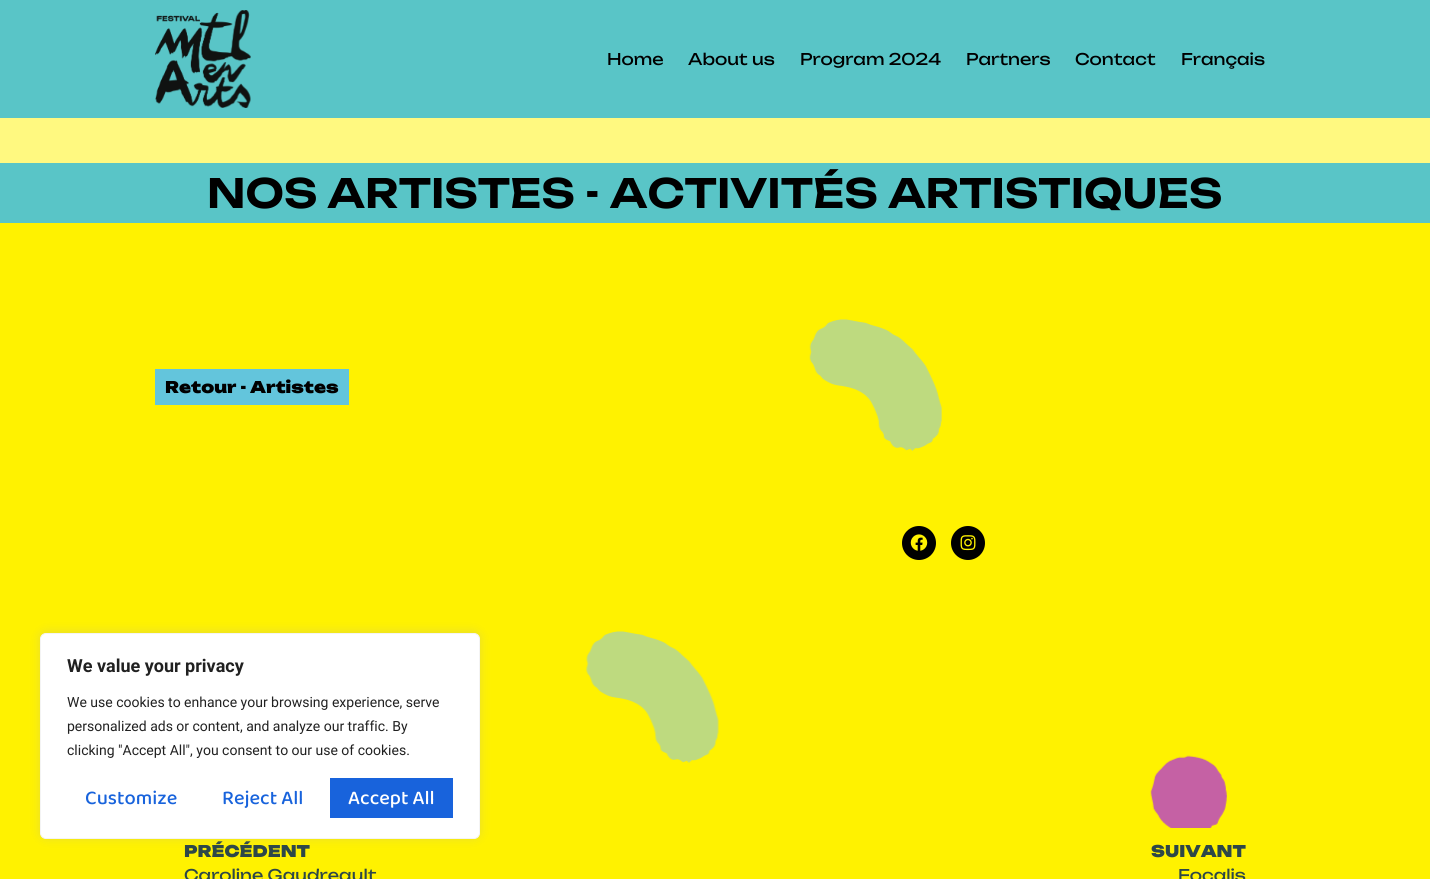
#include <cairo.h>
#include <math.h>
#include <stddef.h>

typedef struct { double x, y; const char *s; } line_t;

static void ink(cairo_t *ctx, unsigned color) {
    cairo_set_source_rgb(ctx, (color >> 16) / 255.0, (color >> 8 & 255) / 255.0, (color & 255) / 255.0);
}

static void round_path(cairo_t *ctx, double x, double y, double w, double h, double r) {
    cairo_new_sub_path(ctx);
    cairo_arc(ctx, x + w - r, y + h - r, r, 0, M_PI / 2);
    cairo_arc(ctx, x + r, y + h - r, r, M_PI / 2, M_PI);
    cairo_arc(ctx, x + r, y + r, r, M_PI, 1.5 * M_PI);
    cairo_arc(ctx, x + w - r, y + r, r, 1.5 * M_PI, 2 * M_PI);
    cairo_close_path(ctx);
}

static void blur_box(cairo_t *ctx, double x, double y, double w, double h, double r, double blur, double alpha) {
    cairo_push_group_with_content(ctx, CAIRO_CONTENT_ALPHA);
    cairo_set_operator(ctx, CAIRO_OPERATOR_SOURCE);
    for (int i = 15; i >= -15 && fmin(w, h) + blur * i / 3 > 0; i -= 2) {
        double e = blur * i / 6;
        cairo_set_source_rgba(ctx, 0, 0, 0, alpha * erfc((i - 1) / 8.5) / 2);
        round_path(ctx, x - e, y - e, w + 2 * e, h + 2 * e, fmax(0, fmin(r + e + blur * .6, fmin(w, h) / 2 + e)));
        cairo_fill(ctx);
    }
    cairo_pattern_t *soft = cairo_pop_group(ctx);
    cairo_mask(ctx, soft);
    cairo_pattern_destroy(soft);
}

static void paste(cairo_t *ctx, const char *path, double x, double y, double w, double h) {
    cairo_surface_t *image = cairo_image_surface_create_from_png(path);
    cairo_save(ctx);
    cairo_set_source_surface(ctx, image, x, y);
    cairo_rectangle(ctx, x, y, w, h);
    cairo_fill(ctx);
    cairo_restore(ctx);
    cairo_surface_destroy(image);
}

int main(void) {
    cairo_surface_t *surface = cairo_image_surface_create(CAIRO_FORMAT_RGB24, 1430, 879);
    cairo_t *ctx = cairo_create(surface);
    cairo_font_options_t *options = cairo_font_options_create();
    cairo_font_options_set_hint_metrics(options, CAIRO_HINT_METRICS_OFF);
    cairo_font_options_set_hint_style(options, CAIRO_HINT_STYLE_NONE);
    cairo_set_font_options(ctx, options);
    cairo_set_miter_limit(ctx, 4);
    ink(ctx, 0xFFF980);
    cairo_paint(ctx);
    ink(ctx, 0x59C5C7);
    cairo_rectangle(ctx, 0, 0, 1430, 118);
    cairo_fill(ctx);
    paste(ctx, "media/1.png", 155, 10, 96, 98);
    cairo_select_font_face(ctx, "Unbounded", CAIRO_FONT_SLANT_NORMAL, CAIRO_FONT_WEIGHT_NORMAL);
    cairo_set_font_size(ctx, 16);
    ink(ctx, 0x000000);
    {
        static const line_t items[] = {
            {607, 65, "Home"},
            {688, 65, "About us"},
            {800, 65, "Program 2024"},
            {966, 65, "Partners"},
            {1075, 65, "Contact"},
            {1181, 65, "Français"},
        };
        for (size_t i = 0; i < sizeof items / sizeof *items; i++) {
            cairo_move_to(ctx, items[i].x, items[i].y);
            cairo_show_text(ctx, items[i].s);
        }
    }
    ink(ctx, 0x59C5C7);
    cairo_rectangle(ctx, 0, 163, 1430, 60);
    cairo_fill(ctx);
    cairo_select_font_face(ctx, "Unbounded SemiBold", CAIRO_FONT_SLANT_NORMAL, CAIRO_FONT_WEIGHT_NORMAL);
    cairo_set_font_size(ctx, 40);
    ink(ctx, 0x000000);
    cairo_move_to(ctx, 207, 208);
    cairo_show_text(ctx, "NOS ARTISTES - ACTIVITÉS ARTISTIQUES");
    ink(ctx, 0xFFF200);
    cairo_rectangle(ctx, 0, 223, 1430, 656);
    cairo_fill(ctx);
    ink(ctx, 0x63C5DC);
    cairo_rectangle(ctx, 155, 369, 194, 36);
    cairo_fill(ctx);
    cairo_select_font_face(ctx, "Unbounded Black", CAIRO_FONT_SLANT_NORMAL, CAIRO_FONT_WEIGHT_NORMAL);
    cairo_set_font_size(ctx, 16);
    ink(ctx, 0x000000);
    cairo_move_to(ctx, 165, 393);
    cairo_show_text(ctx, "Retour - Artistes");
    paste(ctx, "media/2.png", 809, 319, 133, 132);
    cairo_arc(ctx, 919, 543, 17, 0, 2 * M_PI);
    cairo_fill(ctx);
    paste(ctx, "media/3.png", 910, 534, 18, 17);
    cairo_arc(ctx, 968, 543, 17, 0, 2 * M_PI);
    cairo_fill(ctx);
    paste(ctx, "media/4.png", 960, 535, 16, 16);
    paste(ctx, "media/5.png", 586, 631, 133, 132);
    paste(ctx, "media/6.png", 1150, 755, 77, 73);
    ink(ctx, 0x2D4748);
    cairo_move_to(ctx, 184, 857);
    cairo_show_text(ctx, "PRÉCÉDENT");
    cairo_select_font_face(ctx, "Unbounded", CAIRO_FONT_SLANT_NORMAL, CAIRO_FONT_WEIGHT_NORMAL);
    cairo_move_to(ctx, 184, 881);
    cairo_show_text(ctx, "Caroline Gaudreault");
    cairo_select_font_face(ctx, "Unbounded Black", CAIRO_FONT_SLANT_NORMAL, CAIRO_FONT_WEIGHT_NORMAL);
    cairo_move_to(ctx, 1151, 857);
    cairo_show_text(ctx, "SUIVANT");
    cairo_select_font_face(ctx, "Unbounded", CAIRO_FONT_SLANT_NORMAL, CAIRO_FONT_WEIGHT_NORMAL);
    cairo_move_to(ctx, 1178, 881);
    cairo_show_text(ctx, "Focalis");
    ink(ctx, 0xACABAB);
    blur_box(ctx, 40, 632, 440, 206, 6, 5, 0.3);
    ink(ctx, 0xFFFFFF);
    round_path(ctx, 40.5, 633.5, 439, 205, 5.5);
    cairo_fill_preserve(ctx);
    ink(ctx, 0xF4F4F4);
    cairo_set_line_width(ctx, 1);
    cairo_stroke(ctx);
    cairo_select_font_face(ctx, "Roboto", CAIRO_FONT_SLANT_NORMAL, CAIRO_FONT_WEIGHT_BOLD);
    cairo_set_font_size(ctx, 18);
    ink(ctx, 0x212121);
    cairo_move_to(ctx, 67, 672);
    cairo_show_text(ctx, "We value your privacy");
    cairo_select_font_face(ctx, "Roboto", CAIRO_FONT_SLANT_NORMAL, CAIRO_FONT_WEIGHT_NORMAL);
    cairo_set_font_size(ctx, 14);
    {
        static const line_t items[] = {
            {67, 707, "We use cookies to enhance your browsing experience, serve"},
            {67, 731, "personalized ads or content, and analyze our traffic. By"},
            {67, 755, "clicking \"Accept All\", you consent to our use of cookies."},
        };
        for (size_t i = 0; i < sizeof items / sizeof *items; i++) {
            cairo_move_to(ctx, items[i].x, items[i].y);
            cairo_show_text(ctx, items[i].s);
        }
    }
    cairo_select_font_face(ctx, "Baloo 2 Medium", CAIRO_FONT_SLANT_NORMAL, CAIRO_FONT_WEIGHT_NORMAL);
    cairo_set_font_size(ctx, 20);
    ink(ctx, 0x1863DC);
    cairo_move_to(ctx, 85, 804);
    cairo_show_text(ctx, "Customize");
    cairo_move_to(ctx, 222, 804);
    cairo_show_text(ctx, "Reject All");
    cairo_rectangle(ctx, 330, 778, 123, 40);
    cairo_fill(ctx);
    ink(ctx, 0xFFFFFF);
    cairo_move_to(ctx, 348, 804);
    cairo_show_text(ctx, "Accept All");
    cairo_surface_write_to_png(surface, "image.png");
    cairo_font_options_destroy(options);
    cairo_destroy(ctx);
    cairo_surface_destroy(surface);
    return 0;
}
